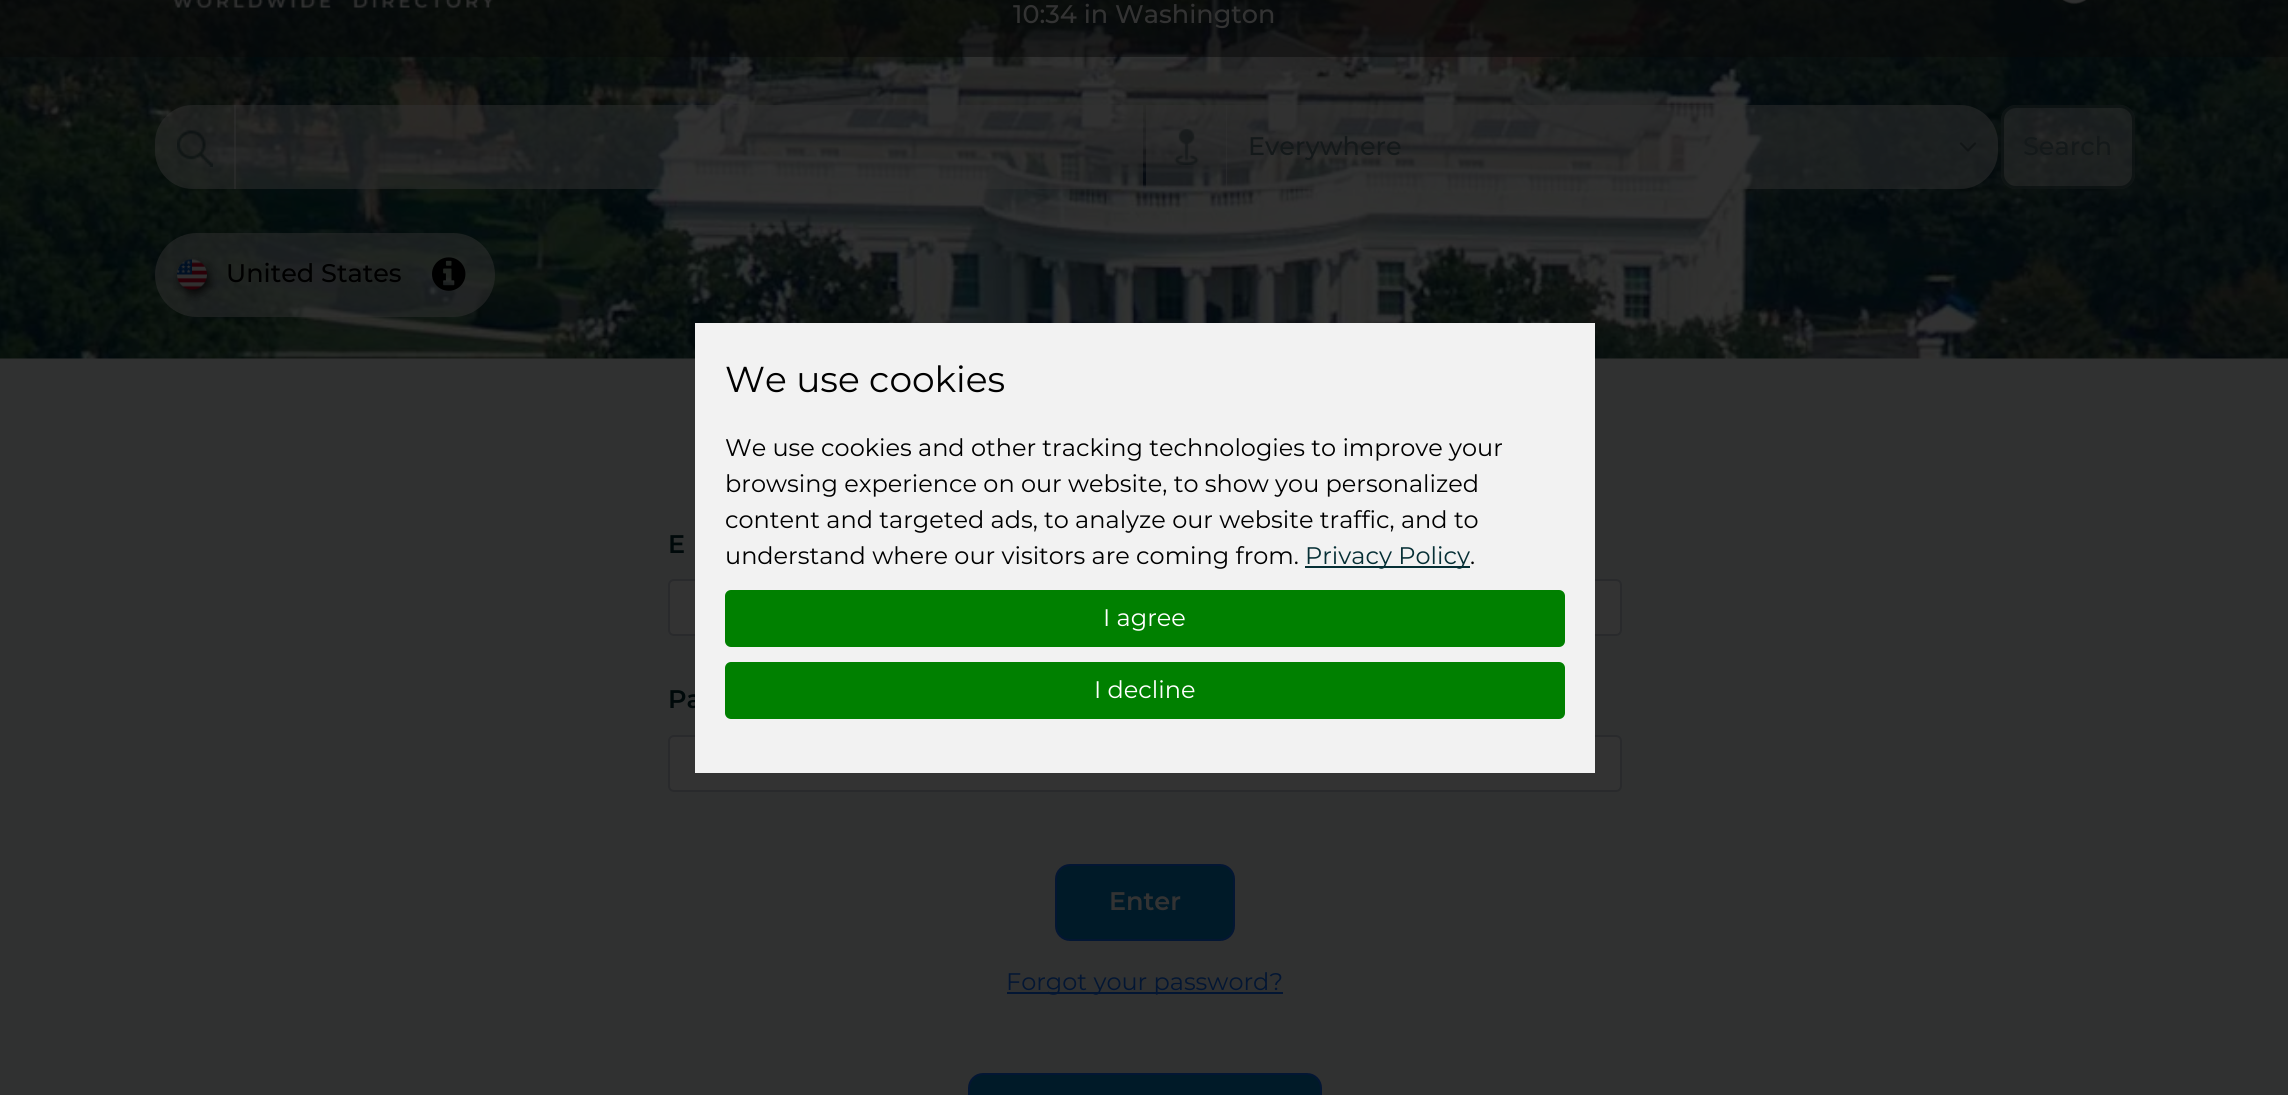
#include <cairo.h>
#include <math.h>
#include <stddef.h>

typedef struct { double x, y; const char *s; } line_t;

static void ink(cairo_t *ctx, unsigned color) {
    cairo_set_source_rgb(ctx, (color >> 16) / 255.0, (color >> 8 & 255) / 255.0, (color & 255) / 255.0);
}

static void round_path(cairo_t *ctx, double x, double y, double w, double h, double r) {
    cairo_new_sub_path(ctx);
    cairo_arc(ctx, x + w - r, y + h - r, r, 0, M_PI / 2);
    cairo_arc(ctx, x + r, y + h - r, r, M_PI / 2, M_PI);
    cairo_arc(ctx, x + r, y + r, r, M_PI, 1.5 * M_PI);
    cairo_arc(ctx, x + w - r, y + r, r, 1.5 * M_PI, 2 * M_PI);
    cairo_close_path(ctx);
}

static void paste(cairo_t *ctx, const char *path, double x, double y, double w, double h) {
    cairo_surface_t *image = cairo_image_surface_create_from_png(path);
    cairo_save(ctx);
    cairo_set_source_surface(ctx, image, x, y);
    cairo_rectangle(ctx, x, y, w, h);
    cairo_fill(ctx);
    cairo_restore(ctx);
    cairo_surface_destroy(image);
}

int main(void) {
    cairo_surface_t *surface = cairo_image_surface_create(CAIRO_FORMAT_RGB24, 2288, 1095);
    cairo_t *ctx = cairo_create(surface);
    cairo_font_options_t *options = cairo_font_options_create();
    cairo_font_options_set_hint_metrics(options, CAIRO_HINT_METRICS_OFF);
    cairo_font_options_set_hint_style(options, CAIRO_HINT_STYLE_NONE);
    cairo_set_font_options(ctx, options);
    cairo_set_miter_limit(ctx, 4);
    ink(ctx, 0x303131);
    cairo_paint(ctx);
    paste(ctx, "media/1.png", 0, 0, 2288, 359);
    cairo_set_source_rgba(ctx, 0.039, 0.039, 0.039, 0.5);
    cairo_rectangle(ctx, 0, 0, 2288, 57);
    cairo_fill(ctx);
    paste(ctx, "media/2.png", 173, 0, 320, 9);
    paste(ctx, "media/3.png", 2062, 0, 34, 5);
    cairo_select_font_face(ctx, "Montserrat Medium", CAIRO_FONT_SLANT_NORMAL, CAIRO_FONT_WEIGHT_NORMAL);
    cairo_set_font_size(ctx, 25.5);
    ink(ctx, 0x333333);
    cairo_move_to(ctx, 1013, 23);
    cairo_show_text(ctx, "10:34 in Washington");
    cairo_set_source_rgba(ctx, 0.2, 0.2, 0.2, 0.5);
    cairo_new_path(ctx);
    cairo_move_to(ctx, 193, 105);
    cairo_line_to(ctx, 236, 105);
    cairo_line_to(ctx, 236, 189);
    cairo_line_to(ctx, 193, 189);
    cairo_curve_to(ctx, 172, 189, 155, 172, 155, 151);
    cairo_line_to(ctx, 155, 143);
    cairo_curve_to(ctx, 155, 122, 172, 105, 193, 105);
    cairo_close_path(ctx);
    cairo_fill(ctx);
    paste(ctx, "media/4.png", 177, 130, 36, 37);
    cairo_rectangle(ctx, 234, 105, 909, 84);
    cairo_fill(ctx);
    cairo_rectangle(ctx, 1146, 105, 81, 84);
    cairo_fill(ctx);
    paste(ctx, "media/5.png", 1174, 128, 25, 37);
    cairo_new_path(ctx);
    cairo_move_to(ctx, 1226, 105);
    cairo_line_to(ctx, 1960, 105);
    cairo_curve_to(ctx, 1981, 105, 1998, 122, 1998, 143);
    cairo_line_to(ctx, 1998, 151);
    cairo_curve_to(ctx, 1998, 172, 1981, 189, 1960, 189);
    cairo_line_to(ctx, 1226, 189);
    cairo_close_path(ctx);
    cairo_fill(ctx);
    cairo_new_path(ctx);
    cairo_move_to(ctx, 1961, 143.5);
    cairo_line_to(ctx, 1968, 150.5);
    cairo_line_to(ctx, 1975, 143.5);
    cairo_set_source_rgba(ctx, 0.039, 0.047, 0.051, 0.5);
    cairo_set_line_width(ctx, 2.2);
    cairo_set_line_cap(ctx, CAIRO_LINE_CAP_ROUND);
    cairo_set_line_join(ctx, CAIRO_LINE_JOIN_ROUND);
    cairo_stroke(ctx);
    ink(ctx, 0x14191A);
    cairo_move_to(ctx, 1248, 155);
    cairo_show_text(ctx, "Everywhere");
    cairo_set_source_rgba(ctx, 0.2, 0.2, 0.2, 0.5);
    round_path(ctx, 2001, 105, 134, 84, 15);
    cairo_fill(ctx);
    round_path(ctx, 2002.5, 106.5, 131, 81, 13.5);
    cairo_set_source_rgba(ctx, 0, 0.035, 0.039, 0.5);
    cairo_set_line_width(ctx, 3);
    cairo_set_line_cap(ctx, CAIRO_LINE_CAP_BUTT);
    cairo_set_line_join(ctx, CAIRO_LINE_JOIN_MITER);
    cairo_stroke(ctx);
    ink(ctx, 0x14191A);
    cairo_move_to(ctx, 2023, 155);
    cairo_show_text(ctx, "Search");
    cairo_set_source_rgba(ctx, 0.2, 0.2, 0.2, 0.5);
    round_path(ctx, 155, 233, 340, 84, 42);
    cairo_fill(ctx);
    paste(ctx, "media/6.png", 173, 257, 44, 44);
    ink(ctx, 0x000000);
    cairo_move_to(ctx, 226, 282);
    cairo_show_text(ctx, "United States");
    paste(ctx, "media/7.png", 432, 257, 34, 34);
    ink(ctx, 0x333333);
    round_path(ctx, 669, 580, 952, 55, 5);
    cairo_fill_preserve(ctx);
    ink(ctx, 0x292A2C);
    cairo_set_line_width(ctx, 2);
    cairo_stroke(ctx);
    cairo_select_font_face(ctx, "Montserrat SemiBold", CAIRO_FONT_SLANT_NORMAL, CAIRO_FONT_WEIGHT_NORMAL);
    ink(ctx, 0x00090A);
    cairo_move_to(ctx, 668, 708);
    cairo_show_text(ctx, "Pa");
    ink(ctx, 0x333333);
    round_path(ctx, 669, 736, 952, 55, 5);
    cairo_fill_preserve(ctx);
    ink(ctx, 0x292A2C);
    cairo_stroke(ctx);
    ink(ctx, 0xF2F2F2);
    cairo_rectangle(ctx, 695, 323, 900, 450);
    cairo_fill(ctx);
    cairo_select_font_face(ctx, "Montserrat", CAIRO_FONT_SLANT_NORMAL, CAIRO_FONT_WEIGHT_NORMAL);
    cairo_set_font_size(ctx, 36);
    ink(ctx, 0x000000);
    cairo_move_to(ctx, 725, 392);
    cairo_show_text(ctx, "We use cookies");
    cairo_set_font_size(ctx, 24);
    {
        static const line_t items[] = {
            {725, 456, "We use cookies and other tracking technologies to improve your"},
            {725, 492, "browsing experience on our website, to show you personalized"},
            {725, 528, "content and targeted ads, to analyze our website traffic, and to"},
            {725, 564, "understand where our visitors are coming from."},
        };
        for (size_t i = 0; i < sizeof items / sizeof *items; i++) {
            cairo_move_to(ctx, items[i].x, items[i].y);
            cairo_show_text(ctx, items[i].s);
        }
    }
    ink(ctx, 0x062F35);
    cairo_rectangle(ctx, 1305, 566, 165, 2);
    cairo_fill(ctx);
    cairo_move_to(ctx, 1305, 564);
    cairo_show_text(ctx, "Privacy Policy");
    ink(ctx, 0x000000);
    cairo_move_to(ctx, 1470, 564);
    cairo_show_text(ctx, ".");
    ink(ctx, 0x008000);
    round_path(ctx, 725, 590, 840, 57, 6);
    cairo_fill(ctx);
    ink(ctx, 0xFFFFFF);
    cairo_move_to(ctx, 1103, 626);
    cairo_show_text(ctx, "I agree");
    ink(ctx, 0x008000);
    round_path(ctx, 725, 662, 840, 57, 6);
    cairo_fill(ctx);
    ink(ctx, 0xFFFFFF);
    cairo_move_to(ctx, 1094, 698);
    cairo_show_text(ctx, "I decline");
    cairo_select_font_face(ctx, "Montserrat SemiBold", CAIRO_FONT_SLANT_NORMAL, CAIRO_FONT_WEIGHT_NORMAL);
    cairo_set_font_size(ctx, 25.5);
    ink(ctx, 0x00090A);
    cairo_move_to(ctx, 668, 553);
    cairo_show_text(ctx, "E");
    ink(ctx, 0x001A28);
    round_path(ctx, 1056, 865, 178, 75, 14);
    cairo_fill_preserve(ctx);
    ink(ctx, 0x031633);
    cairo_stroke(ctx);
    ink(ctx, 0x333333);
    cairo_move_to(ctx, 1109, 910);
    cairo_show_text(ctx, "Enter");
    ink(ctx, 0x031633);
    cairo_rectangle(ctx, 1007, 992, 276, 2);
    cairo_fill(ctx);
    cairo_select_font_face(ctx, "Montserrat", CAIRO_FONT_SLANT_NORMAL, CAIRO_FONT_WEIGHT_NORMAL);
    cairo_set_font_size(ctx, 24);
    cairo_move_to(ctx, 1006, 990);
    cairo_show_text(ctx, "Forgot your password?");
    ink(ctx, 0x001A28);
    round_path(ctx, 969, 1074, 352, 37, 14);
    cairo_fill_preserve(ctx);
    ink(ctx, 0x031633);
    cairo_stroke(ctx);
    cairo_surface_write_to_png(surface, "image.png");
    cairo_font_options_destroy(options);
    cairo_destroy(ctx);
    cairo_surface_destroy(surface);
    return 0;
}
